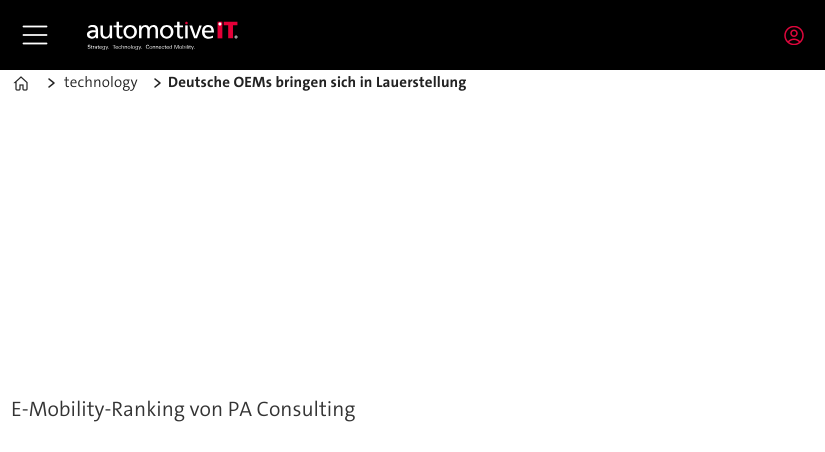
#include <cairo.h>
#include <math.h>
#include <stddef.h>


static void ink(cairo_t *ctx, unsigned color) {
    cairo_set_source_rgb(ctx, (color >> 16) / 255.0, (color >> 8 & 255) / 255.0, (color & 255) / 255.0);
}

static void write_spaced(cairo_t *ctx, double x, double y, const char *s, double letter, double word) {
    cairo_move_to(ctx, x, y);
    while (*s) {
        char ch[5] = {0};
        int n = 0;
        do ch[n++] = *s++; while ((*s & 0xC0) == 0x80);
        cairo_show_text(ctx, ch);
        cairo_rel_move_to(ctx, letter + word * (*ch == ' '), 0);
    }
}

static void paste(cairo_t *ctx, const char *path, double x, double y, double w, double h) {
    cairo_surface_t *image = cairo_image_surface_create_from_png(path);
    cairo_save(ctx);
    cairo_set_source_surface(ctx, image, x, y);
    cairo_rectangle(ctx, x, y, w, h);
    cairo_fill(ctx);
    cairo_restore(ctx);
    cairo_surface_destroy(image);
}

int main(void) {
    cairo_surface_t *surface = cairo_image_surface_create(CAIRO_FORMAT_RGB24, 825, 452);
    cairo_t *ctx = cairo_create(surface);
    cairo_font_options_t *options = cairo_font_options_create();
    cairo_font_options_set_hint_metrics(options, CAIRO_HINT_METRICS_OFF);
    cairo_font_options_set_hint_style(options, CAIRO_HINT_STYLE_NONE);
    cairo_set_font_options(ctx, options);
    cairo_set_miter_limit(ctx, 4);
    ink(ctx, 0xFFFFFF);
    cairo_paint(ctx);
    ink(ctx, 0x000000);
    cairo_rectangle(ctx, 0, 0, 825, 70);
    cairo_fill(ctx);
    cairo_new_path(ctx);
    cairo_move_to(ctx, 23.5, 26.5);
    cairo_line_to(ctx, 46.5, 26.5);
    cairo_move_to(ctx, 23.5, 35);
    cairo_line_to(ctx, 46.5, 35);
    cairo_move_to(ctx, 23.5, 43.5);
    cairo_line_to(ctx, 46.5, 43.5);
    ink(ctx, 0xFFFFFF);
    cairo_set_line_width(ctx, 1.8);
    cairo_set_line_cap(ctx, CAIRO_LINE_CAP_ROUND);
    cairo_stroke(ctx);
    paste(ctx, "media/1.png", 86, 21, 152, 29);
    paste(ctx, "media/2.png", 784, 26, 20, 19);
    paste(ctx, "media/3.png", 13, 76, 15, 15);
    cairo_new_path(ctx);
    cairo_move_to(ctx, 49, 79);
    cairo_line_to(ctx, 54, 83);
    cairo_line_to(ctx, 49, 87);
    ink(ctx, 0x222222);
    cairo_set_line_width(ctx, 1.5);
    cairo_set_line_join(ctx, CAIRO_LINE_JOIN_ROUND);
    cairo_stroke(ctx);
    cairo_select_font_face(ctx, "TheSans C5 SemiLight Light", CAIRO_FONT_SLANT_NORMAL, CAIRO_FONT_WEIGHT_NORMAL);
    cairo_set_font_size(ctx, 15);
    write_spaced(ctx, 64, 87, "technology", 0.15, 0);
    cairo_new_path(ctx);
    cairo_move_to(ctx, 155, 79);
    cairo_line_to(ctx, 160, 83);
    cairo_line_to(ctx, 155, 87);
    cairo_stroke(ctx);
    cairo_select_font_face(ctx, "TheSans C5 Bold", CAIRO_FONT_SLANT_NORMAL, CAIRO_FONT_WEIGHT_BOLD);
    write_spaced(ctx, 168, 87, "Deutsche OEMs bringen sich in Lauerstellung", 0.15, 0);
    cairo_select_font_face(ctx, "TheSans C5 SemiLight Light", CAIRO_FONT_SLANT_NORMAL, CAIRO_FONT_WEIGHT_NORMAL);
    cairo_set_font_size(ctx, 21);
    ink(ctx, 0x333333);
    cairo_move_to(ctx, 11, 416);
    cairo_show_text(ctx, "E-Mobility-Ranking von PA Consulting");
    cairo_surface_write_to_png(surface, "image.png");
    cairo_font_options_destroy(options);
    cairo_destroy(ctx);
    cairo_surface_destroy(surface);
    return 0;
}
